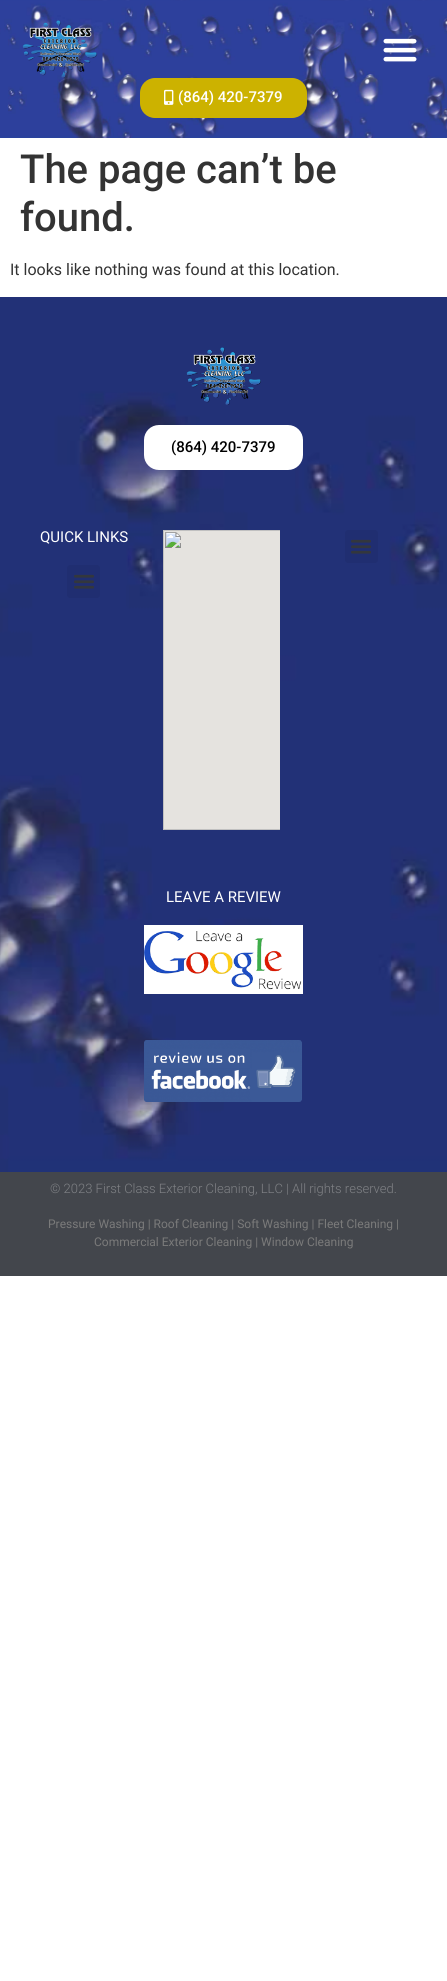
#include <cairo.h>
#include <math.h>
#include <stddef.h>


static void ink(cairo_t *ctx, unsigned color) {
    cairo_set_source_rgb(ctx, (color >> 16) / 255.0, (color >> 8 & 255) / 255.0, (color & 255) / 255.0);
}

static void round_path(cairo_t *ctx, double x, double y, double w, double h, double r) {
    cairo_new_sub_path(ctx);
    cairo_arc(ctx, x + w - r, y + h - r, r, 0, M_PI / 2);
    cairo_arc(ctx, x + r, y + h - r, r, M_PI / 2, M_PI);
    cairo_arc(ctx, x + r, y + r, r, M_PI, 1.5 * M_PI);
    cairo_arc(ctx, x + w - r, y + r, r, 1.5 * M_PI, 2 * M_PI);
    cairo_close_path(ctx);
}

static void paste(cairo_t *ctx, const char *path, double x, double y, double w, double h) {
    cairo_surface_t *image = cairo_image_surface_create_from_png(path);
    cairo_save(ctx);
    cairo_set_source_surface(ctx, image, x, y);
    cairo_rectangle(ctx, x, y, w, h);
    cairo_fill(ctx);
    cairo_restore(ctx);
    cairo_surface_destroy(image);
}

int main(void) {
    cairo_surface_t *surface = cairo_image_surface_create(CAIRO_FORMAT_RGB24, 447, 1981);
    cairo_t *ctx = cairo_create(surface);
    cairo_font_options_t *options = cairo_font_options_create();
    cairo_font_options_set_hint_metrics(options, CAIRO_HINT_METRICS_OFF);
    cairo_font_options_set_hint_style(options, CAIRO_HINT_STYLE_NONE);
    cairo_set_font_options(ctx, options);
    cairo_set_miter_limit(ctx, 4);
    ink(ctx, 0xFFFFFF);
    cairo_paint(ctx);
    paste(ctx, "media/1.png", 0, 0, 447, 138);
    paste(ctx, "media/2.png", 22, 20, 76, 58);
    paste(ctx, "media/3.png", 383, 38, 34, 24);
    ink(ctx, 0xCCB200);
    round_path(ctx, 140, 78, 167, 40, 15);
    cairo_fill(ctx);
    paste(ctx, "media/4.png", 164, 89, 10, 16);
    cairo_select_font_face(ctx, "Roboto Medium", CAIRO_FONT_SLANT_NORMAL, CAIRO_FONT_WEIGHT_NORMAL);
    cairo_set_font_size(ctx, 15);
    ink(ctx, 0xFFFFFF);
    cairo_move_to(ctx, 178, 102);
    cairo_show_text(ctx, "(864) 420-7379");
    cairo_set_font_size(ctx, 40);
    ink(ctx, 0x333333);
    cairo_move_to(ctx, 20, 183);
    cairo_show_text(ctx, "The page can’t be");
    cairo_move_to(ctx, 20, 231);
    cairo_show_text(ctx, "found.");
    cairo_select_font_face(ctx, "Roboto", CAIRO_FONT_SLANT_NORMAL, CAIRO_FONT_WEIGHT_NORMAL);
    cairo_set_font_size(ctx, 16);
    cairo_move_to(ctx, 10, 275);
    cairo_show_text(ctx, "It looks like nothing was found at this location.");
    paste(ctx, "media/5.png", 0, 297, 447, 875);
    paste(ctx, "media/6.png", 186, 347, 75, 58);
    ink(ctx, 0xFFFFFF);
    round_path(ctx, 145.5, 426.5, 156, 42, 13.5);
    cairo_fill_preserve(ctx);
    cairo_set_line_width(ctx, 3);
    cairo_stroke(ctx);
    cairo_select_font_face(ctx, "Roboto Medium", CAIRO_FONT_SLANT_NORMAL, CAIRO_FONT_WEIGHT_NORMAL);
    cairo_set_font_size(ctx, 15);
    ink(ctx, 0x000000);
    cairo_move_to(ctx, 171, 452);
    cairo_show_text(ctx, "(864) 420-7379");
    cairo_select_font_face(ctx, "Roboto", CAIRO_FONT_SLANT_NORMAL, CAIRO_FONT_WEIGHT_NORMAL);
    ink(ctx, 0xFFFFFF);
    cairo_move_to(ctx, 40, 542);
    cairo_show_text(ctx, "QUICK LINKS");
    ink(ctx, 0x202E71);
    round_path(ctx, 67, 565, 33, 33, 3);
    cairo_fill(ctx);
    paste(ctx, "media/7.png", 74, 574, 20, 15);
    paste(ctx, "media/8.png", 163, 530, 117, 300);
    round_path(ctx, 345, 530, 33, 33, 3);
    cairo_fill(ctx);
    paste(ctx, "media/7.png", 351, 539, 20, 15);
    ink(ctx, 0xFFFFFF);
    cairo_move_to(ctx, 166, 902);
    cairo_show_text(ctx, "LEAVE A REVIEW");
    paste(ctx, "media/9.png", 144, 925, 159, 69);
    paste(ctx, "media/10.png", 144, 1040, 158, 62);
    ink(ctx, 0x43464C);
    cairo_rectangle(ctx, 0, 1172, 447, 104);
    cairo_fill(ctx);
    cairo_select_font_face(ctx, "Roboto Light", CAIRO_FONT_SLANT_NORMAL, CAIRO_FONT_WEIGHT_NORMAL);
    cairo_set_font_size(ctx, 13);
    ink(ctx, 0x7F8185);
    cairo_move_to(ctx, 50, 1193);
    cairo_show_text(ctx, "© 2023 First Class Exterior Cleaning, LLC | All rights reserved.");
    cairo_select_font_face(ctx, "Roboto", CAIRO_FONT_SLANT_NORMAL, CAIRO_FONT_WEIGHT_NORMAL);
    cairo_set_font_size(ctx, 12);
    ink(ctx, 0x7A7A7A);
    cairo_move_to(ctx, 48, 1228);
    cairo_show_text(ctx, "Pressure Washing | Roof Cleaning | Soft Washing | Fleet Cleaning |");
    cairo_move_to(ctx, 94, 1246);
    cairo_show_text(ctx, "Commercial Exterior Cleaning | Window Cleaning");
    cairo_surface_write_to_png(surface, "image.png");
    cairo_font_options_destroy(options);
    cairo_destroy(ctx);
    cairo_surface_destroy(surface);
    return 0;
}
